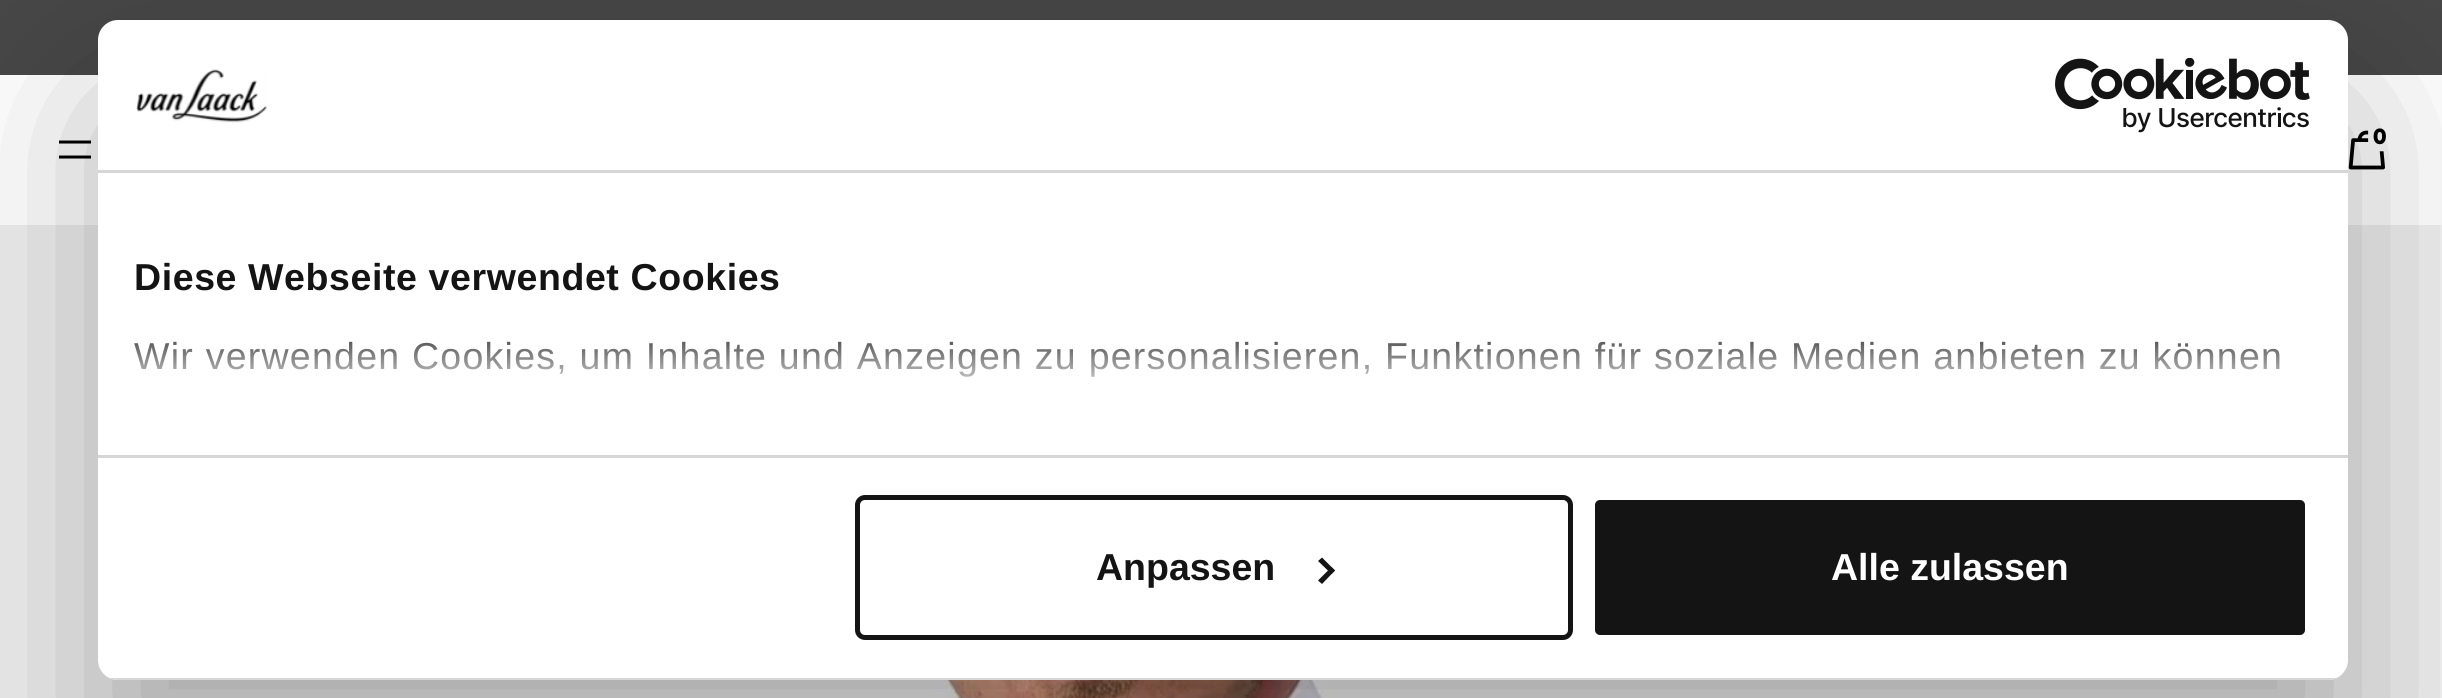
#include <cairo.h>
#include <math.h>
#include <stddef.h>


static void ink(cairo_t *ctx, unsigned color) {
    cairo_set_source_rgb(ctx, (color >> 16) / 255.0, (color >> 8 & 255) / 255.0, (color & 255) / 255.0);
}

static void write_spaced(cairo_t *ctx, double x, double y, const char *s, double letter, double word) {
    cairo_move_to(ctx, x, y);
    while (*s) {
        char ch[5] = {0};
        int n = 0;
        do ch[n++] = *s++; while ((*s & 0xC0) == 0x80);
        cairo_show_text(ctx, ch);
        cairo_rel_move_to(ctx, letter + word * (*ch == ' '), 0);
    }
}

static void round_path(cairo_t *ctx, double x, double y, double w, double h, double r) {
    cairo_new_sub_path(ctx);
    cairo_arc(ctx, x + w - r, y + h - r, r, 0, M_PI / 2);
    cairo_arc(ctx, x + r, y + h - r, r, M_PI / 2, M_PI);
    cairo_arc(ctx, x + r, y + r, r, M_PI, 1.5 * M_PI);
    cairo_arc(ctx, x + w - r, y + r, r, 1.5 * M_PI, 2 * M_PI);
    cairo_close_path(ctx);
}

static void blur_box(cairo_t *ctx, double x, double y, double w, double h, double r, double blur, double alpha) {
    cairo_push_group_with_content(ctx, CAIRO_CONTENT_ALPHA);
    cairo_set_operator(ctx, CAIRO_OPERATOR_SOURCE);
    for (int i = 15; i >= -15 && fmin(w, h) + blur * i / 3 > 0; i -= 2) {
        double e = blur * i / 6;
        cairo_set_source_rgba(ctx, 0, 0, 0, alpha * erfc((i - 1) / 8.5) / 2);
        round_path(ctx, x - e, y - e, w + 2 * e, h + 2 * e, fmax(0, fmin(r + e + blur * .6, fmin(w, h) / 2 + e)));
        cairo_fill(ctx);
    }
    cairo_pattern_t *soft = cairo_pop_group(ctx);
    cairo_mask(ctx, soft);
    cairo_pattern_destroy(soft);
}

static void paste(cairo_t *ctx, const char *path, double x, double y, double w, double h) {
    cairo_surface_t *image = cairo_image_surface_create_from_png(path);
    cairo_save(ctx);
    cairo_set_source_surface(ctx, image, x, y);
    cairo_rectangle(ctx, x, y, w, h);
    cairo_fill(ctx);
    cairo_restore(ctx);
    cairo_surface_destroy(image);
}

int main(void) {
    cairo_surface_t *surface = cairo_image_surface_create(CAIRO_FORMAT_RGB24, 2442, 698);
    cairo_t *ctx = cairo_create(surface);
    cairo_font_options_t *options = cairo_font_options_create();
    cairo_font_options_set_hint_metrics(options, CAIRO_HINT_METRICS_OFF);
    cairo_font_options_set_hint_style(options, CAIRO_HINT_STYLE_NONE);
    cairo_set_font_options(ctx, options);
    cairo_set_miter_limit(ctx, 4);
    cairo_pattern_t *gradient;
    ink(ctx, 0xF6F6F6);
    cairo_paint(ctx);
    ink(ctx, 0xFFFFFF);
    cairo_rectangle(ctx, 0, 75, 2442, 150);
    cairo_fill(ctx);
    ink(ctx, 0x474747);
    cairo_rectangle(ctx, 0, 0, 2442, 75);
    cairo_fill(ctx);
    paste(ctx, "media/1.png", 2348, 130, 37, 40);
    cairo_select_font_face(ctx, "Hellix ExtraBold", CAIRO_FONT_SLANT_NORMAL, CAIRO_FONT_WEIGHT_NORMAL);
    cairo_set_font_size(ctx, 22);
    ink(ctx, 0x000000);
    cairo_move_to(ctx, 2373, 144);
    cairo_show_text(ctx, "0");
    cairo_new_path(ctx);
    cairo_move_to(ctx, 59, 142);
    cairo_line_to(ctx, 91, 142);
    cairo_move_to(ctx, 59, 157);
    cairo_line_to(ctx, 91, 157);
    cairo_set_line_width(ctx, 3);
    cairo_set_line_join(ctx, CAIRO_LINE_JOIN_BEVEL);
    cairo_stroke(ctx);
    paste(ctx, "media/2.png", 0, 225, 2440, 473);
    ink(ctx, 0x000000);
    blur_box(ctx, 98, 100, 2250, 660, 20, 85, 0.3);
    ink(ctx, 0xFFFFFF);
    round_path(ctx, 98, 20, 2250, 660, 20);
    cairo_fill(ctx);
    ink(ctx, 0xD6D6D6);
    cairo_rectangle(ctx, 98, 170, 2250, 3);
    cairo_fill(ctx);
    paste(ctx, "media/3.png", 136, 69, 131, 54);
    paste(ctx, "media/4.png", 2055, 58, 255, 75);
    cairo_rectangle(ctx, 98, 455, 2250, 3);
    cairo_fill(ctx);
    cairo_select_font_face(ctx, "Liberation Sans", CAIRO_FONT_SLANT_NORMAL, CAIRO_FONT_WEIGHT_BOLD);
    cairo_set_font_size(ctx, 37.5);
    ink(ctx, 0x141414);
    write_spaced(ctx, 134, 290, "Diese Webseite verwendet Cookies", 0.6, 0);
    cairo_select_font_face(ctx, "Liberation Sans", CAIRO_FONT_SLANT_NORMAL, CAIRO_FONT_WEIGHT_NORMAL);
    write_spaced(ctx, 134, 369, "Wir verwenden Cookies, um Inhalte und Anzeigen zu personalisieren, Funktionen für soziale Medien anbieten zu können", 1.25, 0);
    gradient = cairo_pattern_create_linear(1206, 455, 1206, 315);
    cairo_pattern_add_color_stop_rgba(gradient, 0, 1, 1, 1, 1);
    cairo_pattern_add_color_stop_rgba(gradient, 0.5, 1, 1, 1, 0.8);
    cairo_pattern_add_color_stop_rgba(gradient, 1, 1, 1, 1, 0);
    cairo_set_source(ctx, gradient);
    cairo_pattern_destroy(gradient);
    cairo_rectangle(ctx, 134, 341, 2146, 36);
    cairo_fill(ctx);
    cairo_save(ctx);
    round_path(ctx, 98, 20, 2250, 660, 20);
    cairo_clip(ctx);
    ink(ctx, 0xD6D6D6);
    cairo_rectangle(ctx, 109, 678, 2228, 2);
    cairo_fill(ctx);
    cairo_restore(ctx);
    round_path(ctx, 857.5, 497.5, 713, 140, 7.5);
    ink(ctx, 0x141414);
    cairo_set_line_width(ctx, 5);
    cairo_set_line_join(ctx, CAIRO_LINE_JOIN_MITER);
    cairo_stroke(ctx);
    cairo_select_font_face(ctx, "Liberation Sans", CAIRO_FONT_SLANT_NORMAL, CAIRO_FONT_WEIGHT_BOLD);
    cairo_move_to(ctx, 1096, 580);
    cairo_show_text(ctx, "Anpassen");
    cairo_new_path(ctx);
    cairo_move_to(ctx, 1322, 557.5);
    cairo_line_to(ctx, 1335, 570.5);
    cairo_line_to(ctx, 1331.5, 574);
    cairo_line_to(ctx, 1318, 561);
    cairo_close_path(ctx);
    cairo_fill(ctx);
    cairo_new_path(ctx);
    cairo_move_to(ctx, 1331.5, 567);
    cairo_line_to(ctx, 1335, 570.5);
    cairo_line_to(ctx, 1322, 584);
    cairo_line_to(ctx, 1318, 580.5);
    cairo_close_path(ctx);
    cairo_fill(ctx);
    round_path(ctx, 1592.5, 497.5, 715, 140, 7.5);
    cairo_fill_preserve(ctx);
    ink(ctx, 0xFFFFFF);
    cairo_stroke(ctx);
    cairo_move_to(ctx, 1831, 580);
    cairo_show_text(ctx, "Alle zulassen");
    cairo_surface_write_to_png(surface, "image.png");
    cairo_font_options_destroy(options);
    cairo_destroy(ctx);
    cairo_surface_destroy(surface);
    return 0;
}
